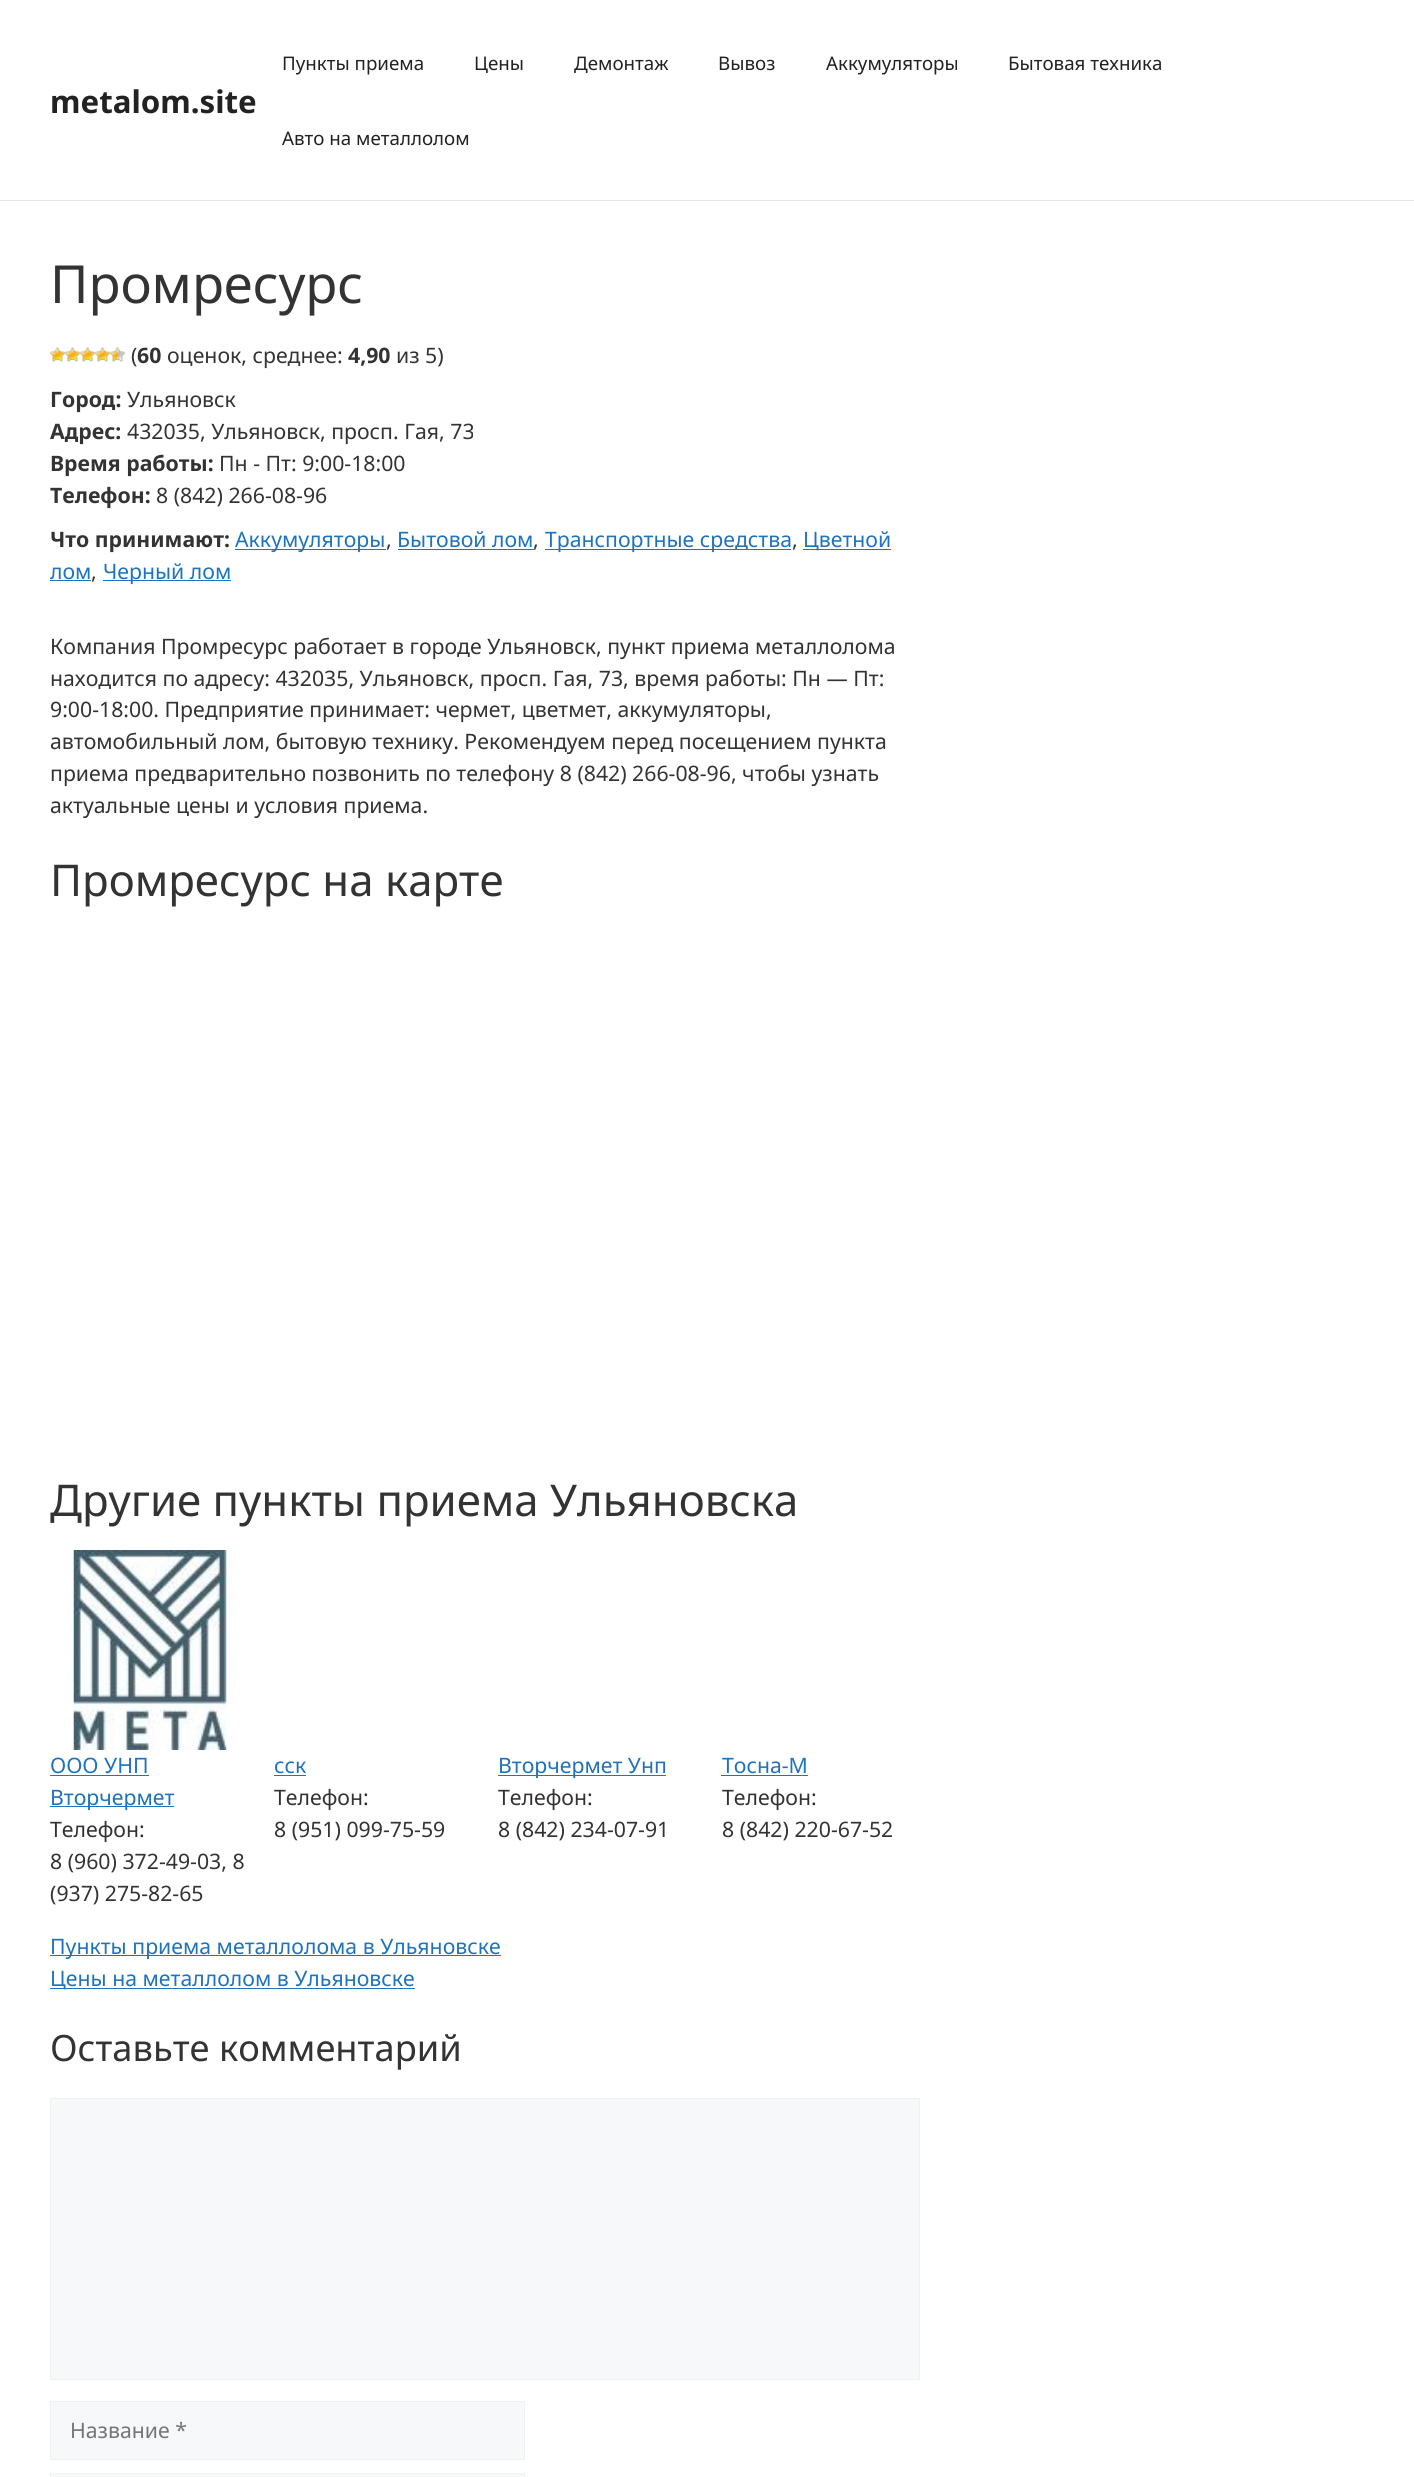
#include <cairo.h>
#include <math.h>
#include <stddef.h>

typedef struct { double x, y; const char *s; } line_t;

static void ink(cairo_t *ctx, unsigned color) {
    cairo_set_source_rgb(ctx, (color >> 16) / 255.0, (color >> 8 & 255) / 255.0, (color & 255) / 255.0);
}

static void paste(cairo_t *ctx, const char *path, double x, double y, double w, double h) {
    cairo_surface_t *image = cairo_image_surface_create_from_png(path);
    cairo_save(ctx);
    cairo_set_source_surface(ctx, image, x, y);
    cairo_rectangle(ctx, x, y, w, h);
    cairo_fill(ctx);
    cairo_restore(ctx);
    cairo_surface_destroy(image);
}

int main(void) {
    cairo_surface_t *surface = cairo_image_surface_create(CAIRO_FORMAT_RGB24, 1414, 2477);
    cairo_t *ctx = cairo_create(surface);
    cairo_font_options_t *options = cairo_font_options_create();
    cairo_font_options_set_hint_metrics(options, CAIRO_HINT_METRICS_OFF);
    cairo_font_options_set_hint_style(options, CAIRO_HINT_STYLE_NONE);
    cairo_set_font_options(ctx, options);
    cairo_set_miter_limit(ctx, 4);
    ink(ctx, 0xFFFFFF);
    cairo_paint(ctx);
    ink(ctx, 0xE3E3E3);
    cairo_rectangle(ctx, 0, 200, 1414, 1);
    cairo_fill(ctx);
    cairo_select_font_face(ctx, "Noto Sans", CAIRO_FONT_SLANT_NORMAL, CAIRO_FONT_WEIGHT_BOLD);
    cairo_set_font_size(ctx, 31.25);
    ink(ctx, 0x222222);
    cairo_move_to(ctx, 50, 113);
    cairo_show_text(ctx, "metalom.site");
    cairo_select_font_face(ctx, "Noto Sans", CAIRO_FONT_SLANT_NORMAL, CAIRO_FONT_WEIGHT_NORMAL);
    cairo_set_font_size(ctx, 18.75);
    {
        static const line_t items[] = {
            {282, 70, "Пункты приема"},
            {474, 70, "Цены"},
            {574, 70, "Демонтаж"},
            {718, 70, "Вывоз"},
            {826, 70, "Аккумуляторы"},
            {1008, 70, "Бытовая техника"},
            {282, 145, "Авто на металлолом"},
        };
        for (size_t i = 0; i < sizeof items / sizeof *items; i++) {
            cairo_move_to(ctx, items[i].x, items[i].y);
            cairo_show_text(ctx, items[i].s);
        }
    }
    cairo_set_font_size(ctx, 52.5);
    ink(ctx, 0x333333);
    cairo_move_to(ctx, 50, 303);
    cairo_show_text(ctx, "Промресурс");
    paste(ctx, "media/1.png", 50, 347, 15, 15);
    paste(ctx, "media/1.png", 65, 347, 15, 15);
    paste(ctx, "media/1.png", 80, 347, 15, 15);
    paste(ctx, "media/1.png", 95, 347, 15, 15);
    paste(ctx, "media/2.png", 110, 347, 15, 15);
    cairo_set_font_size(ctx, 21.25);
    cairo_move_to(ctx, 131, 363);
    cairo_show_text(ctx, "(");
    cairo_select_font_face(ctx, "Noto Sans", CAIRO_FONT_SLANT_NORMAL, CAIRO_FONT_WEIGHT_BOLD);
    cairo_move_to(ctx, 137, 363);
    cairo_show_text(ctx, "60");
    cairo_select_font_face(ctx, "Noto Sans", CAIRO_FONT_SLANT_NORMAL, CAIRO_FONT_WEIGHT_NORMAL);
    cairo_move_to(ctx, 167, 363);
    cairo_show_text(ctx, "оценок, среднее:");
    cairo_select_font_face(ctx, "Noto Sans", CAIRO_FONT_SLANT_NORMAL, CAIRO_FONT_WEIGHT_BOLD);
    cairo_move_to(ctx, 348, 363);
    cairo_show_text(ctx, "4,90");
    cairo_select_font_face(ctx, "Noto Sans", CAIRO_FONT_SLANT_NORMAL, CAIRO_FONT_WEIGHT_NORMAL);
    cairo_move_to(ctx, 396, 363);
    cairo_show_text(ctx, "из 5)");
    cairo_select_font_face(ctx, "Noto Sans", CAIRO_FONT_SLANT_NORMAL, CAIRO_FONT_WEIGHT_BOLD);
    cairo_move_to(ctx, 50, 407);
    cairo_show_text(ctx, "Город:");
    cairo_select_font_face(ctx, "Noto Sans", CAIRO_FONT_SLANT_NORMAL, CAIRO_FONT_WEIGHT_NORMAL);
    cairo_move_to(ctx, 127, 407);
    cairo_show_text(ctx, "Ульяновск");
    cairo_select_font_face(ctx, "Noto Sans", CAIRO_FONT_SLANT_NORMAL, CAIRO_FONT_WEIGHT_BOLD);
    cairo_move_to(ctx, 50, 439);
    cairo_show_text(ctx, "Адрес:");
    cairo_select_font_face(ctx, "Noto Sans", CAIRO_FONT_SLANT_NORMAL, CAIRO_FONT_WEIGHT_NORMAL);
    cairo_move_to(ctx, 127, 439);
    cairo_show_text(ctx, "432035, Ульяновск, просп. Гая, 73");
    cairo_select_font_face(ctx, "Noto Sans", CAIRO_FONT_SLANT_NORMAL, CAIRO_FONT_WEIGHT_BOLD);
    cairo_move_to(ctx, 50, 471);
    cairo_show_text(ctx, "Время работы:");
    cairo_select_font_face(ctx, "Noto Sans", CAIRO_FONT_SLANT_NORMAL, CAIRO_FONT_WEIGHT_NORMAL);
    cairo_move_to(ctx, 219, 471);
    cairo_show_text(ctx, "Пн - Пт: 9:00-18:00");
    cairo_select_font_face(ctx, "Noto Sans", CAIRO_FONT_SLANT_NORMAL, CAIRO_FONT_WEIGHT_BOLD);
    cairo_move_to(ctx, 50, 503);
    cairo_show_text(ctx, "Телефон:");
    cairo_select_font_face(ctx, "Noto Sans", CAIRO_FONT_SLANT_NORMAL, CAIRO_FONT_WEIGHT_NORMAL);
    cairo_move_to(ctx, 156, 503);
    cairo_show_text(ctx, "8 (842) 266-08-96");
    cairo_select_font_face(ctx, "Noto Sans", CAIRO_FONT_SLANT_NORMAL, CAIRO_FONT_WEIGHT_BOLD);
    cairo_move_to(ctx, 50, 547);
    cairo_show_text(ctx, "Что принимают:");
    ink(ctx, 0x1E73BE);
    cairo_rectangle(ctx, 235, 549, 151, 1);
    cairo_fill(ctx);
    cairo_select_font_face(ctx, "Noto Sans", CAIRO_FONT_SLANT_NORMAL, CAIRO_FONT_WEIGHT_NORMAL);
    cairo_move_to(ctx, 235, 547);
    cairo_show_text(ctx, "Аккумуляторы");
    ink(ctx, 0x333333);
    cairo_move_to(ctx, 386, 547);
    cairo_show_text(ctx, ",");
    ink(ctx, 0x1E73BE);
    cairo_move_to(ctx, 397, 547);
    cairo_show_text(ctx, "Бытовой лом");
    cairo_rectangle(ctx, 398, 549, 136, 1);
    cairo_fill(ctx);
    ink(ctx, 0x333333);
    cairo_move_to(ctx, 533, 547);
    cairo_show_text(ctx, ",");
    ink(ctx, 0x1E73BE);
    cairo_rectangle(ctx, 545, 549, 246, 1);
    cairo_fill(ctx);
    cairo_move_to(ctx, 545, 547);
    cairo_show_text(ctx, "Транспортные средства");
    ink(ctx, 0x333333);
    cairo_move_to(ctx, 792, 547);
    cairo_show_text(ctx, ",");
    ink(ctx, 0x1E73BE);
    cairo_rectangle(ctx, 803, 549, 88, 1);
    cairo_fill(ctx);
    cairo_move_to(ctx, 803, 547);
    cairo_show_text(ctx, "Цветной");
    cairo_move_to(ctx, 50, 579);
    cairo_show_text(ctx, "лом");
    cairo_rectangle(ctx, 50, 580, 41, 1);
    cairo_fill(ctx);
    ink(ctx, 0x333333);
    cairo_move_to(ctx, 91, 579);
    cairo_show_text(ctx, ",");
    ink(ctx, 0x1E73BE);
    cairo_rectangle(ctx, 103, 580, 128, 1);
    cairo_fill(ctx);
    cairo_move_to(ctx, 103, 579);
    cairo_show_text(ctx, "Черный лом");
    ink(ctx, 0x333333);
    {
        static const line_t items[] = {
            {50, 654, "Компания Промресурс работает в городе Ульяновск, пункт приема металлолома"},
            {50, 686, "находится по адресу: 432035, Ульяновск, просп. Гая, 73, время работы: Пн — Пт:"},
            {50, 717, "9:00-18:00. Предприятие принимает: чермет, цветмет, аккумуляторы,"},
            {50, 749, "автомобильный лом, бытовую технику. Рекомендуем перед посещением пункта"},
            {50, 781, "приема предварительно позвонить по телефону 8 (842) 266-08-96, чтобы узнать"},
            {50, 813, "актуальные цены и условия приема."},
        };
        for (size_t i = 0; i < sizeof items / sizeof *items; i++) {
            cairo_move_to(ctx, items[i].x, items[i].y);
            cairo_show_text(ctx, items[i].s);
        }
    }
    cairo_set_font_size(ctx, 43.75);
    cairo_move_to(ctx, 50, 896);
    cairo_show_text(ctx, "Промресурс на карте");
    cairo_move_to(ctx, 50, 1516);
    cairo_show_text(ctx, "Другие пункты приема Ульяновска");
    paste(ctx, "media/3.png", 73, 1550, 154, 200);
    cairo_set_font_size(ctx, 21.25);
    ink(ctx, 0x1E73BE);
    cairo_move_to(ctx, 50, 1773);
    cairo_show_text(ctx, "ООО УНП");
    cairo_rectangle(ctx, 50, 1775, 99, 1);
    cairo_fill(ctx);
    cairo_rectangle(ctx, 50, 1806, 124, 1);
    cairo_fill(ctx);
    cairo_move_to(ctx, 50, 1805);
    cairo_show_text(ctx, "Вторчермет");
    ink(ctx, 0x333333);
    {
        static const line_t items[] = {
            {50, 1837, "Телефон:"},
            {50, 1869, "8 (960) 372-49-03, 8"},
            {50, 1901, "(937) 275-82-65"},
        };
        for (size_t i = 0; i < sizeof items / sizeof *items; i++) {
            cairo_move_to(ctx, items[i].x, items[i].y);
            cairo_show_text(ctx, items[i].s);
        }
    }
    ink(ctx, 0x1E73BE);
    cairo_move_to(ctx, 274, 1773);
    cairo_show_text(ctx, "сск");
    cairo_rectangle(ctx, 274, 1775, 32, 1);
    cairo_fill(ctx);
    ink(ctx, 0x333333);
    cairo_move_to(ctx, 274, 1805);
    cairo_show_text(ctx, "Телефон:");
    cairo_move_to(ctx, 274, 1837);
    cairo_show_text(ctx, "8 (951) 099-75-59");
    ink(ctx, 0x1E73BE);
    cairo_rectangle(ctx, 498, 1775, 168, 1);
    cairo_fill(ctx);
    cairo_move_to(ctx, 498, 1773);
    cairo_show_text(ctx, "Вторчермет Унп");
    ink(ctx, 0x333333);
    cairo_move_to(ctx, 498, 1805);
    cairo_show_text(ctx, "Телефон:");
    cairo_move_to(ctx, 498, 1837);
    cairo_show_text(ctx, "8 (842) 234-07-91");
    ink(ctx, 0x1E73BE);
    cairo_move_to(ctx, 722, 1773);
    cairo_show_text(ctx, "Тосна-М");
    cairo_rectangle(ctx, 721, 1775, 87, 1);
    cairo_fill(ctx);
    ink(ctx, 0x333333);
    cairo_move_to(ctx, 722, 1805);
    cairo_show_text(ctx, "Телефон:");
    cairo_move_to(ctx, 722, 1837);
    cairo_show_text(ctx, "8 (842) 220-67-52");
    ink(ctx, 0x1E73BE);
    cairo_rectangle(ctx, 50, 1955, 451, 1);
    cairo_fill(ctx);
    cairo_move_to(ctx, 50, 1954);
    cairo_show_text(ctx, "Пункты приема металлолома в Ульяновске");
    cairo_rectangle(ctx, 50, 1988, 365, 1);
    cairo_fill(ctx);
    cairo_move_to(ctx, 50, 1986);
    cairo_show_text(ctx, "Цены на металлолом в Ульяновске");
    cairo_set_font_size(ctx, 36.25);
    ink(ctx, 0x333333);
    cairo_move_to(ctx, 50, 2061);
    cairo_show_text(ctx, "Оставьте комментарий");
    ink(ctx, 0xF7F8F9);
    cairo_rectangle(ctx, 50.5, 2098.5, 869, 281);
    cairo_fill_preserve(ctx);
    ink(ctx, 0xF0F0F0);
    cairo_set_line_width(ctx, 1);
    cairo_stroke(ctx);
    ink(ctx, 0xF7F8F9);
    cairo_rectangle(ctx, 50.5, 2401.5, 474, 58);
    cairo_fill_preserve(ctx);
    ink(ctx, 0xF0F0F0);
    cairo_stroke(ctx);
    cairo_set_font_size(ctx, 21.25);
    ink(ctx, 0x757575);
    cairo_move_to(ctx, 70, 2438);
    cairo_show_text(ctx, "Название *");
    ink(ctx, 0xF7F8F9);
    cairo_rectangle(ctx, 50.5, 2473.5, 474, 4);
    cairo_fill_preserve(ctx);
    ink(ctx, 0xF0F0F0);
    cairo_stroke(ctx);
    cairo_surface_write_to_png(surface, "image.png");
    cairo_font_options_destroy(options);
    cairo_destroy(ctx);
    cairo_surface_destroy(surface);
    return 0;
}
